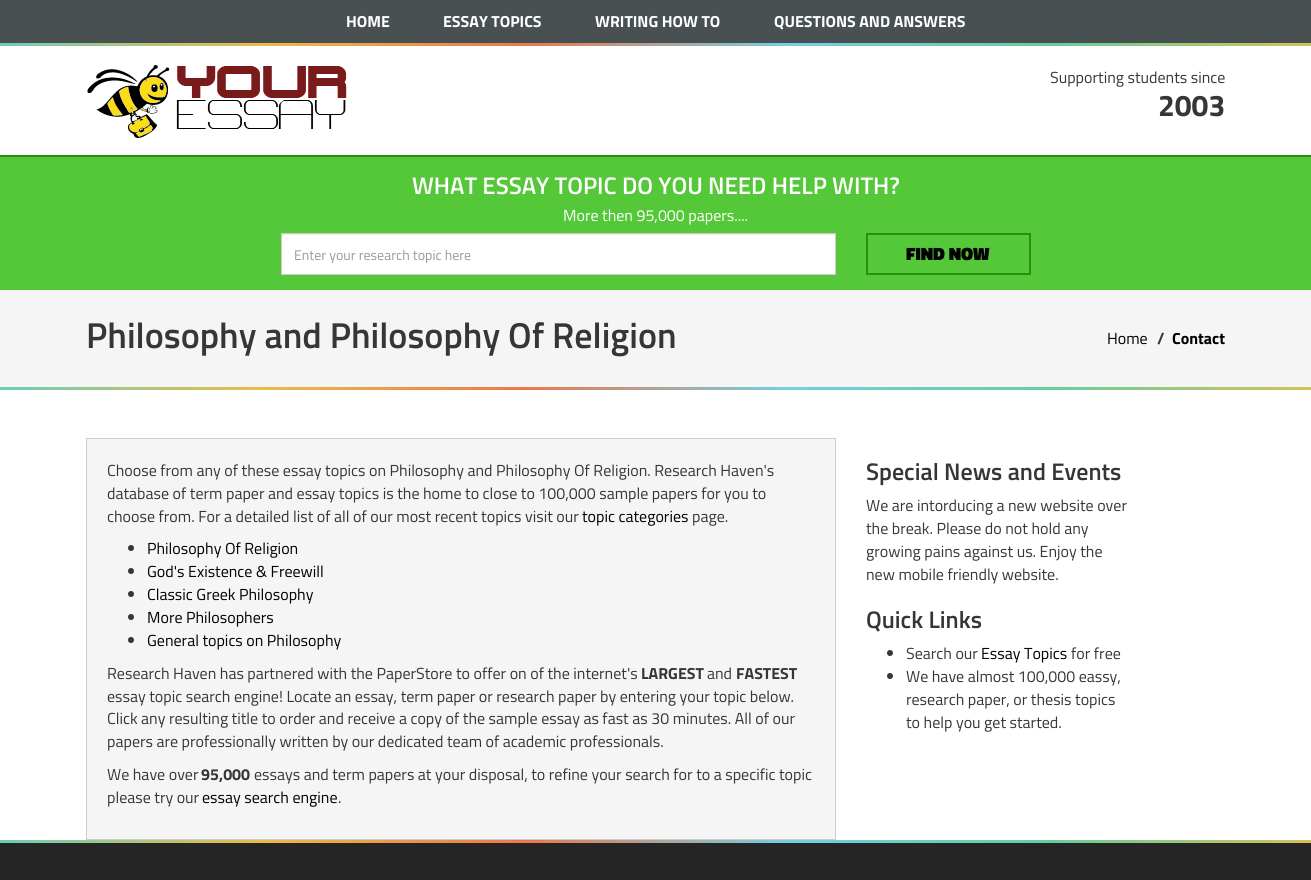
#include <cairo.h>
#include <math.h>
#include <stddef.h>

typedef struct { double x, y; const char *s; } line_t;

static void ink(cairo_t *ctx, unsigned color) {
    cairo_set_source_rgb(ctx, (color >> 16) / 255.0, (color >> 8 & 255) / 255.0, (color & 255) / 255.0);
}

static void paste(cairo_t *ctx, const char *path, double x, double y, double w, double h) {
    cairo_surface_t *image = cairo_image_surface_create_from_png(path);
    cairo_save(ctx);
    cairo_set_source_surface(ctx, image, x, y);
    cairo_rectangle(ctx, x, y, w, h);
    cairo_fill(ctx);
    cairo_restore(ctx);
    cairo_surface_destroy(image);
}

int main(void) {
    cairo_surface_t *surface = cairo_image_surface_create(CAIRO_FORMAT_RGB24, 1311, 880);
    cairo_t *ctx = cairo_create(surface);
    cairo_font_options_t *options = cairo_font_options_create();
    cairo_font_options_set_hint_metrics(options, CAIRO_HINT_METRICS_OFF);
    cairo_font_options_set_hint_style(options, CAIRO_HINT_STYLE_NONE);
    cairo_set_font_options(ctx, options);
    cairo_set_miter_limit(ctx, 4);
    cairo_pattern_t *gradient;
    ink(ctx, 0xFFFFFF);
    cairo_paint(ctx);
    ink(ctx, 0x495052);
    cairo_rectangle(ctx, 0, 0, 1311, 43);
    cairo_fill(ctx);
    cairo_select_font_face(ctx, "Titillium Web", CAIRO_FONT_SLANT_NORMAL, CAIRO_FONT_WEIGHT_BOLD);
    cairo_set_font_size(ctx, 16);
    ink(ctx, 0xFFFFFF);
    {
        static const line_t items[] = {
            {346, 27, "HOME"},
            {443, 27, "ESSAY TOPICS"},
            {595, 27, "WRITING HOW TO"},
            {774, 27, "QUESTIONS AND ANSWERS"},
        };
        for (size_t i = 0; i < sizeof items / sizeof *items; i++) {
            cairo_move_to(ctx, items[i].x, items[i].y);
            cairo_show_text(ctx, items[i].s);
        }
    }
    gradient = cairo_pattern_create_linear(0, 45, 1311, 44);
    cairo_pattern_add_color_stop_rgba(gradient, 0, 0.42, 0.808, 0.722, 1);
    cairo_pattern_add_color_stop_rgba(gradient, 0.2, 0.929, 0.733, 0.278, 1);
    cairo_pattern_add_color_stop_rgba(gradient, 0.4, 0.925, 0.471, 0.294, 1);
    cairo_pattern_add_color_stop_rgba(gradient, 0.6, 0.455, 0.808, 0.886, 1);
    cairo_pattern_add_color_stop_rgba(gradient, 0.8, 0.4, 0.808, 0.62, 1);
    cairo_pattern_add_color_stop_rgba(gradient, 1, 0.827, 0.761, 0.341, 1);
    cairo_set_source(ctx, gradient);
    cairo_pattern_destroy(gradient);
    cairo_rectangle(ctx, 0, 43, 1311, 3);
    cairo_fill(ctx);
    paste(ctx, "media/1.png", 87, 65, 260, 73);
    cairo_select_font_face(ctx, "Titillium Web", CAIRO_FONT_SLANT_NORMAL, CAIRO_FONT_WEIGHT_NORMAL);
    ink(ctx, 0x363636);
    cairo_move_to(ctx, 1050, 83);
    cairo_show_text(ctx, "Supporting students since");
    cairo_select_font_face(ctx, "Titillium Web", CAIRO_FONT_SLANT_NORMAL, CAIRO_FONT_WEIGHT_BOLD);
    cairo_set_font_size(ctx, 30);
    cairo_move_to(ctx, 1158, 116);
    cairo_show_text(ctx, "2003");
    ink(ctx, 0x55C83A);
    cairo_rectangle(ctx, 0, 157, 1311, 133);
    cairo_fill(ctx);
    ink(ctx, 0x268F0D);
    cairo_rectangle(ctx, 0, 155, 1311, 2);
    cairo_fill(ctx);
    cairo_select_font_face(ctx, "Titillium Web SemiBold", CAIRO_FONT_SLANT_NORMAL, CAIRO_FONT_WEIGHT_NORMAL);
    cairo_set_font_size(ctx, 24);
    ink(ctx, 0xFFFFFF);
    cairo_move_to(ctx, 412, 194);
    cairo_show_text(ctx, "WHAT ESSAY TOPIC DO YOU NEED HELP WITH?");
    cairo_select_font_face(ctx, "Titillium Web", CAIRO_FONT_SLANT_NORMAL, CAIRO_FONT_WEIGHT_NORMAL);
    cairo_set_font_size(ctx, 16);
    cairo_move_to(ctx, 563, 221);
    cairo_show_text(ctx, "More then 95,000 papers....");
    cairo_rectangle(ctx, 282, 235, 553, 39);
    cairo_fill(ctx);
    ink(ctx, 0xECECEC);
    cairo_rectangle(ctx, 282, 234, 553, 1);
    cairo_fill(ctx);
    cairo_rectangle(ctx, 281.5, 233.5, 554, 41);
    ink(ctx, 0xCCCCCC);
    cairo_set_line_width(ctx, 1);
    cairo_stroke(ctx);
    cairo_set_font_size(ctx, 14);
    ink(ctx, 0x999999);
    cairo_move_to(ctx, 294, 260);
    cairo_show_text(ctx, "Enter your research topic here");
    cairo_rectangle(ctx, 867, 234, 163, 40);
    ink(ctx, 0x268F0D);
    cairo_set_line_width(ctx, 2);
    cairo_stroke(ctx);
    cairo_select_font_face(ctx, "Titillium Web Black", CAIRO_FONT_SLANT_NORMAL, CAIRO_FONT_WEIGHT_NORMAL);
    cairo_set_font_size(ctx, 18);
    ink(ctx, 0x000000);
    cairo_move_to(ctx, 906, 260);
    cairo_show_text(ctx, "FIND NOW");
    ink(ctx, 0xF5F5F5);
    cairo_rectangle(ctx, 0, 290, 1311, 97);
    cairo_fill(ctx);
    cairo_select_font_face(ctx, "Titillium Web SemiBold", CAIRO_FONT_SLANT_NORMAL, CAIRO_FONT_WEIGHT_NORMAL);
    cairo_set_font_size(ctx, 36);
    ink(ctx, 0x363636);
    cairo_move_to(ctx, 86, 348);
    cairo_show_text(ctx, "Philosophy and Philosophy Of Religion");
    cairo_select_font_face(ctx, "Titillium Web", CAIRO_FONT_SLANT_NORMAL, CAIRO_FONT_WEIGHT_NORMAL);
    cairo_set_font_size(ctx, 16);
    ink(ctx, 0x000000);
    cairo_move_to(ctx, 1107, 344);
    cairo_show_text(ctx, "Home");
    cairo_select_font_face(ctx, "Titillium Web", CAIRO_FONT_SLANT_NORMAL, CAIRO_FONT_WEIGHT_BOLD);
    ink(ctx, 0x363636);
    cairo_move_to(ctx, 1157, 344);
    cairo_show_text(ctx, "/");
    ink(ctx, 0x000000);
    cairo_move_to(ctx, 1172, 344);
    cairo_show_text(ctx, "Contact");
    gradient = cairo_pattern_create_linear(0, 389, 1311, 388);
    cairo_pattern_add_color_stop_rgba(gradient, 0, 0.42, 0.808, 0.722, 1);
    cairo_pattern_add_color_stop_rgba(gradient, 0.2, 0.929, 0.733, 0.278, 1);
    cairo_pattern_add_color_stop_rgba(gradient, 0.4, 0.925, 0.471, 0.294, 1);
    cairo_pattern_add_color_stop_rgba(gradient, 0.6, 0.455, 0.808, 0.886, 1);
    cairo_pattern_add_color_stop_rgba(gradient, 0.8, 0.4, 0.808, 0.62, 1);
    cairo_pattern_add_color_stop_rgba(gradient, 1, 0.827, 0.761, 0.341, 1);
    cairo_set_source(ctx, gradient);
    cairo_pattern_destroy(gradient);
    cairo_rectangle(ctx, 0, 387, 1311, 3);
    cairo_fill(ctx);
    ink(ctx, 0xF5F5F5);
    cairo_rectangle(ctx, 86.5, 438.5, 749, 401);
    cairo_fill_preserve(ctx);
    ink(ctx, 0xCCCCCC);
    cairo_set_line_width(ctx, 1);
    cairo_stroke(ctx);
    cairo_select_font_face(ctx, "Titillium Web", CAIRO_FONT_SLANT_NORMAL, CAIRO_FONT_WEIGHT_NORMAL);
    ink(ctx, 0x363636);
    {
        static const line_t items[] = {
            {107, 476, "Choose from any of these essay topics on Philosophy and Philosophy Of Religion. Research Haven's"},
            {107, 499, "database of term paper and essay topics is the home to close to 100,000 sample papers for you to"},
            {107, 522, "choose from. For a detailed list of all of our most recent topics visit our"},
        };
        for (size_t i = 0; i < sizeof items / sizeof *items; i++) {
            cairo_move_to(ctx, items[i].x, items[i].y);
            cairo_show_text(ctx, items[i].s);
        }
    }
    ink(ctx, 0x000000);
    cairo_move_to(ctx, 582, 522);
    cairo_show_text(ctx, "topic categories");
    ink(ctx, 0x363636);
    cairo_move_to(ctx, 692, 522);
    cairo_show_text(ctx, "page.");
    cairo_new_path(ctx);
    cairo_arc(ctx, 131, 548, 3, 0, 2 * M_PI);
    cairo_fill(ctx);
    ink(ctx, 0x000000);
    cairo_move_to(ctx, 147, 554);
    cairo_show_text(ctx, "Philosophy Of Religion");
    ink(ctx, 0x363636);
    cairo_new_path(ctx);
    cairo_arc(ctx, 131, 571, 3, 0, 2 * M_PI);
    cairo_fill(ctx);
    ink(ctx, 0x000000);
    cairo_move_to(ctx, 147, 577);
    cairo_show_text(ctx, "God's Existence & Freewill");
    ink(ctx, 0x363636);
    cairo_new_path(ctx);
    cairo_arc(ctx, 131, 594, 3, 0, 2 * M_PI);
    cairo_fill(ctx);
    ink(ctx, 0x000000);
    cairo_move_to(ctx, 147, 600);
    cairo_show_text(ctx, "Classic Greek Philosophy");
    ink(ctx, 0x363636);
    cairo_new_path(ctx);
    cairo_arc(ctx, 131, 617, 3, 0, 2 * M_PI);
    cairo_fill(ctx);
    ink(ctx, 0x000000);
    cairo_move_to(ctx, 147, 623);
    cairo_show_text(ctx, "More Philosophers");
    ink(ctx, 0x363636);
    cairo_new_path(ctx);
    cairo_arc(ctx, 131, 640, 3, 0, 2 * M_PI);
    cairo_fill(ctx);
    ink(ctx, 0x000000);
    cairo_move_to(ctx, 147, 646);
    cairo_show_text(ctx, "General topics on Philosophy");
    ink(ctx, 0x363636);
    cairo_move_to(ctx, 107, 679);
    cairo_show_text(ctx, "Research Haven has partnered with the PaperStore to offer on of the internet's");
    cairo_select_font_face(ctx, "Titillium Web", CAIRO_FONT_SLANT_NORMAL, CAIRO_FONT_WEIGHT_BOLD);
    cairo_move_to(ctx, 641, 679);
    cairo_show_text(ctx, "LARGEST");
    cairo_select_font_face(ctx, "Titillium Web", CAIRO_FONT_SLANT_NORMAL, CAIRO_FONT_WEIGHT_NORMAL);
    cairo_move_to(ctx, 707, 679);
    cairo_show_text(ctx, "and");
    cairo_select_font_face(ctx, "Titillium Web", CAIRO_FONT_SLANT_NORMAL, CAIRO_FONT_WEIGHT_BOLD);
    cairo_move_to(ctx, 736, 679);
    cairo_show_text(ctx, "FASTEST");
    cairo_select_font_face(ctx, "Titillium Web", CAIRO_FONT_SLANT_NORMAL, CAIRO_FONT_WEIGHT_NORMAL);
    {
        static const line_t items[] = {
            {107, 702, "essay topic search engine! Locate an essay, term paper or research paper by entering your topic below."},
            {107, 724, "Click any resulting title to order and receive a copy of the sample essay as fast as 30 minutes. All of our"},
            {107, 747, "papers are professionally written by our dedicated team of academic professionals."},
            {107, 780, "We have over"},
        };
        for (size_t i = 0; i < sizeof items / sizeof *items; i++) {
            cairo_move_to(ctx, items[i].x, items[i].y);
            cairo_show_text(ctx, items[i].s);
        }
    }
    cairo_select_font_face(ctx, "Titillium Web", CAIRO_FONT_SLANT_NORMAL, CAIRO_FONT_WEIGHT_BOLD);
    cairo_move_to(ctx, 201, 780);
    cairo_show_text(ctx, "95,000");
    cairo_select_font_face(ctx, "Titillium Web", CAIRO_FONT_SLANT_NORMAL, CAIRO_FONT_WEIGHT_NORMAL);
    cairo_move_to(ctx, 254, 780);
    cairo_show_text(ctx, "essays and term papers at your disposal, to refine your search for to a specific topic");
    cairo_move_to(ctx, 107, 803);
    cairo_show_text(ctx, "please try our");
    ink(ctx, 0x000000);
    cairo_move_to(ctx, 202, 803);
    cairo_show_text(ctx, "essay search engine");
    ink(ctx, 0x363636);
    cairo_move_to(ctx, 338, 803);
    cairo_show_text(ctx, ".");
    cairo_select_font_face(ctx, "Titillium Web SemiBold", CAIRO_FONT_SLANT_NORMAL, CAIRO_FONT_WEIGHT_NORMAL);
    cairo_set_font_size(ctx, 24);
    cairo_move_to(ctx, 866, 480);
    cairo_show_text(ctx, "Special News and Events");
    cairo_select_font_face(ctx, "Titillium Web", CAIRO_FONT_SLANT_NORMAL, CAIRO_FONT_WEIGHT_NORMAL);
    cairo_set_font_size(ctx, 16);
    {
        static const line_t items[] = {
            {866, 511, "We are intorducing a new website over"},
            {866, 534, "the break. Please do not hold any"},
            {866, 557, "growing pains against us. Enjoy the"},
            {866, 580, "new mobile friendly website."},
        };
        for (size_t i = 0; i < sizeof items / sizeof *items; i++) {
            cairo_move_to(ctx, items[i].x, items[i].y);
            cairo_show_text(ctx, items[i].s);
        }
    }
    cairo_select_font_face(ctx, "Titillium Web SemiBold", CAIRO_FONT_SLANT_NORMAL, CAIRO_FONT_WEIGHT_NORMAL);
    cairo_set_font_size(ctx, 24);
    cairo_move_to(ctx, 866, 628);
    cairo_show_text(ctx, "Quick Links");
    cairo_new_path(ctx);
    cairo_arc(ctx, 890, 653, 3, 0, 2 * M_PI);
    cairo_fill(ctx);
    cairo_select_font_face(ctx, "Titillium Web", CAIRO_FONT_SLANT_NORMAL, CAIRO_FONT_WEIGHT_NORMAL);
    cairo_set_font_size(ctx, 16);
    cairo_move_to(ctx, 906, 659);
    cairo_show_text(ctx, "Search our");
    ink(ctx, 0x000000);
    cairo_move_to(ctx, 981, 659);
    cairo_show_text(ctx, "Essay Topics");
    ink(ctx, 0x363636);
    cairo_move_to(ctx, 1071, 659);
    cairo_show_text(ctx, "for free");
    cairo_new_path(ctx);
    cairo_arc(ctx, 890, 676, 3, 0, 2 * M_PI);
    cairo_fill(ctx);
    {
        static const line_t items[] = {
            {906, 682, "We have almost 100,000 eassy,"},
            {906, 705, "research paper, or thesis topics"},
            {906, 728, "to help you get started."},
        };
        for (size_t i = 0; i < sizeof items / sizeof *items; i++) {
            cairo_move_to(ctx, items[i].x, items[i].y);
            cairo_show_text(ctx, items[i].s);
        }
    }
    gradient = cairo_pattern_create_linear(0, 842, 1311, 842);
    cairo_pattern_add_color_stop_rgba(gradient, 0, 0.42, 0.808, 0.722, 1);
    cairo_pattern_add_color_stop_rgba(gradient, 0.2, 0.929, 0.733, 0.278, 1);
    cairo_pattern_add_color_stop_rgba(gradient, 0.4, 0.925, 0.471, 0.294, 1);
    cairo_pattern_add_color_stop_rgba(gradient, 0.6, 0.455, 0.808, 0.886, 1);
    cairo_pattern_add_color_stop_rgba(gradient, 0.8, 0.4, 0.808, 0.62, 1);
    cairo_pattern_add_color_stop_rgba(gradient, 1, 0.827, 0.761, 0.341, 1);
    cairo_set_source(ctx, gradient);
    cairo_pattern_destroy(gradient);
    cairo_rectangle(ctx, 0, 840, 1311, 3);
    cairo_fill(ctx);
    ink(ctx, 0x252525);
    cairo_rectangle(ctx, 0, 843, 1311, 37);
    cairo_fill(ctx);
    cairo_surface_write_to_png(surface, "image.png");
    cairo_font_options_destroy(options);
    cairo_destroy(ctx);
    cairo_surface_destroy(surface);
    return 0;
}
